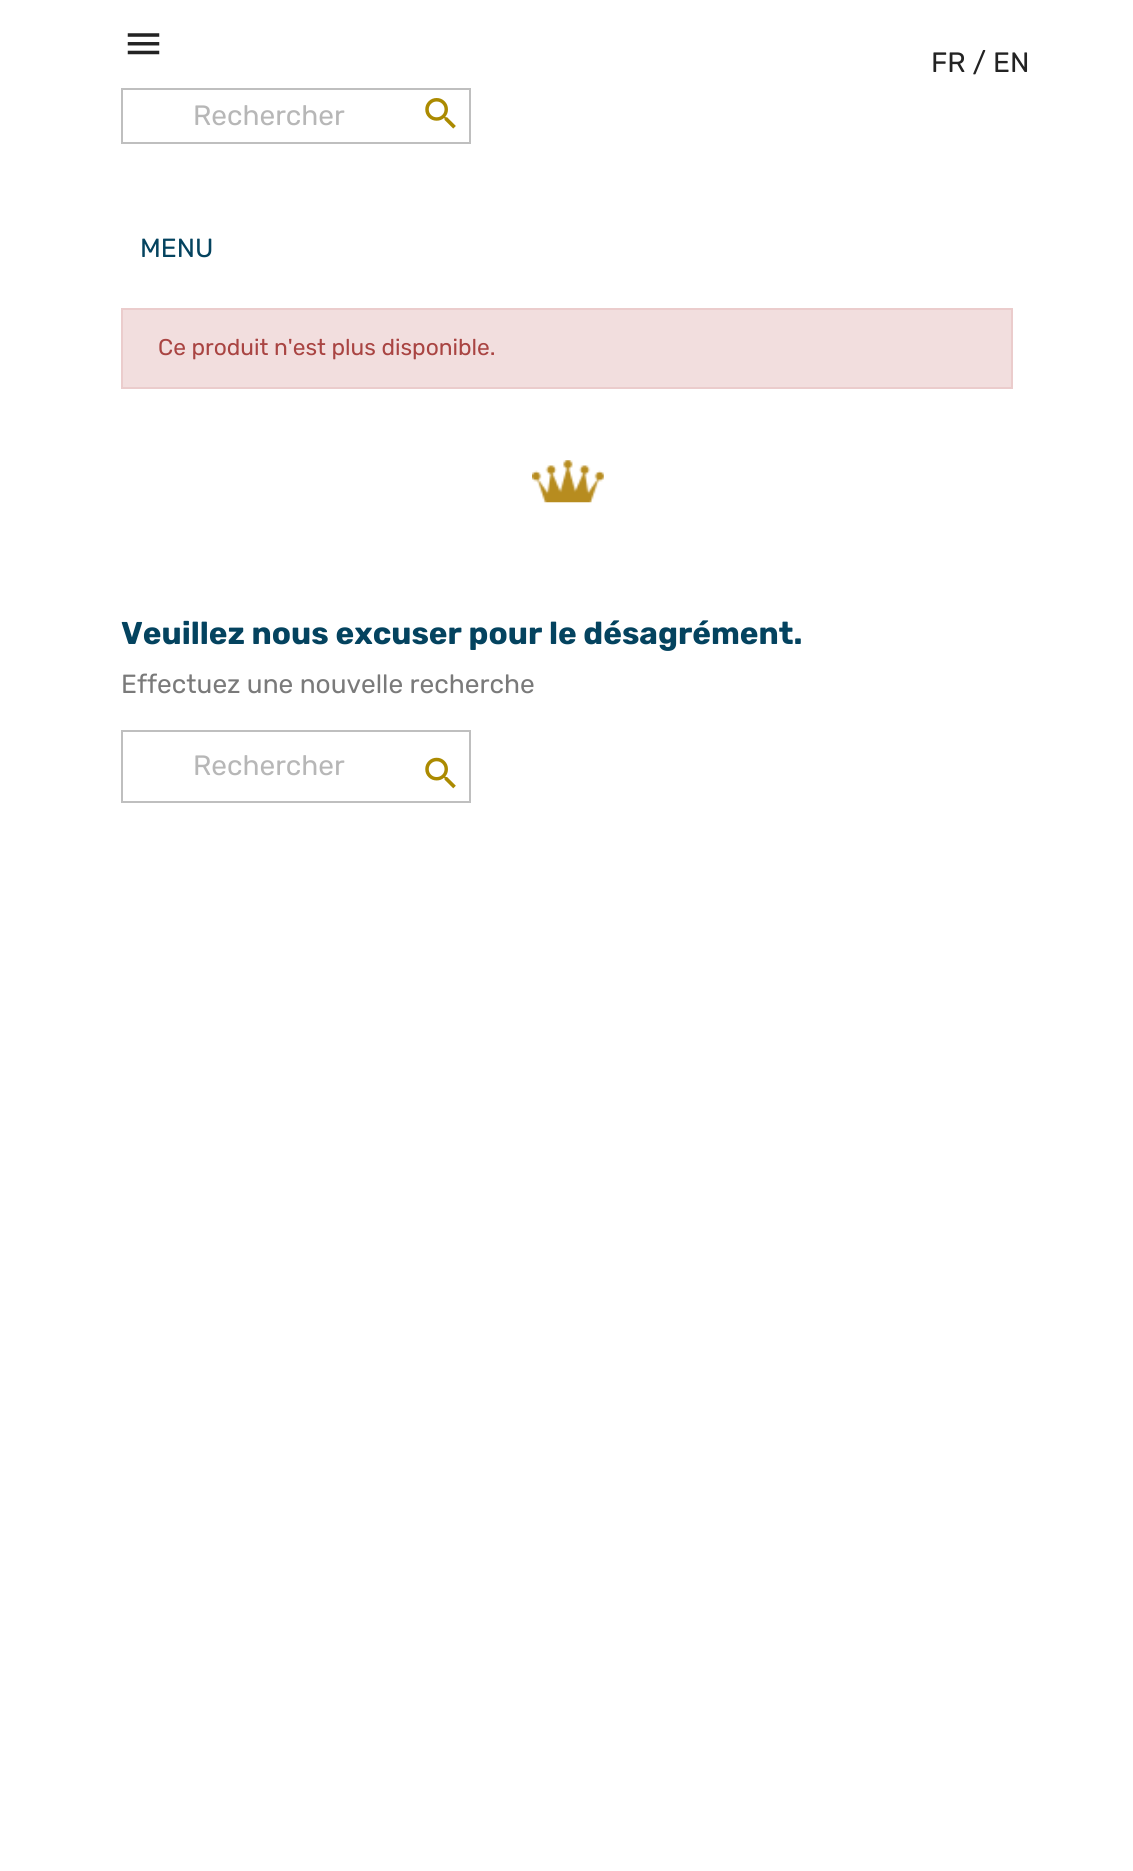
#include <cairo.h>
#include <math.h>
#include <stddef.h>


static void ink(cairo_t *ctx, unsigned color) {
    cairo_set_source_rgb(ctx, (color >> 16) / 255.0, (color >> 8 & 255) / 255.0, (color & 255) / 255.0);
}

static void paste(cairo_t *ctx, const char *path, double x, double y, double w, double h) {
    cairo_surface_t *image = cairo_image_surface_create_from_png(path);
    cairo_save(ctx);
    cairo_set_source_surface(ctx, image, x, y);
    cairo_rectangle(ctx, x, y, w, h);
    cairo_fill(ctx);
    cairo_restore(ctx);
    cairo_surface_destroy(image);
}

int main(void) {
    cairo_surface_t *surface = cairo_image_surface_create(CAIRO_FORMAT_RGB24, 1133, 1871);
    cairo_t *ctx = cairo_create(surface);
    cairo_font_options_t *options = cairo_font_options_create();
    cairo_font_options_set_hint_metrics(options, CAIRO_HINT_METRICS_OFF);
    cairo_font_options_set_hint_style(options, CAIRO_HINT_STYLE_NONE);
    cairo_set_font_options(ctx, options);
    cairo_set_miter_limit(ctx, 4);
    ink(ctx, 0xFFFFFF);
    cairo_paint(ctx);
    paste(ctx, "media/1.png", 127, 33, 33, 22);
    cairo_select_font_face(ctx, "Rubik", CAIRO_FONT_SLANT_NORMAL, CAIRO_FONT_WEIGHT_NORMAL);
    cairo_set_font_size(ctx, 28);
    ink(ctx, 0x232323);
    cairo_move_to(ctx, 931, 72);
    cairo_show_text(ctx, "FR / EN");
    cairo_rectangle(ctx, 122, 89, 348, 54);
    ink(ctx, 0xBFBFBF);
    cairo_stroke(ctx);
    ink(ctx, 0xB7B7B7);
    cairo_move_to(ctx, 193, 125);
    cairo_show_text(ctx, "Rechercher");
    paste(ctx, "media/2.png", 425, 98, 31, 31);
    cairo_set_font_size(ctx, 26.25);
    ink(ctx, 0x04435F);
    cairo_move_to(ctx, 140, 257);
    cairo_show_text(ctx, "MENU");
    ink(ctx, 0xF2DEDE);
    cairo_rectangle(ctx, 122, 309, 890, 79);
    cairo_fill_preserve(ctx);
    ink(ctx, 0xEBCCCC);
    cairo_stroke(ctx);
    cairo_set_font_size(ctx, 22.75);
    ink(ctx, 0xA94442);
    cairo_move_to(ctx, 158, 355);
    cairo_show_text(ctx, "Ce produit n'est plus disponible.");
    paste(ctx, "media/3.png", 532, 460, 72, 43);
    cairo_select_font_face(ctx, "Rubik", CAIRO_FONT_SLANT_NORMAL, CAIRO_FONT_WEIGHT_BOLD);
    cairo_set_font_size(ctx, 31.5);
    ink(ctx, 0x04435F);
    cairo_move_to(ctx, 121, 644);
    cairo_show_text(ctx, "Veuillez nous excuser pour le désagrément.");
    cairo_select_font_face(ctx, "Rubik", CAIRO_FONT_SLANT_NORMAL, CAIRO_FONT_WEIGHT_NORMAL);
    cairo_set_font_size(ctx, 26.25);
    ink(ctx, 0x7A7A7A);
    cairo_move_to(ctx, 121, 693);
    cairo_show_text(ctx, "Effectuez une nouvelle recherche");
    cairo_rectangle(ctx, 122, 731, 348, 71);
    ink(ctx, 0xBFBFBF);
    cairo_stroke(ctx);
    cairo_set_font_size(ctx, 28);
    ink(ctx, 0xB7B7B7);
    cairo_move_to(ctx, 193, 775);
    cairo_show_text(ctx, "Rechercher");
    paste(ctx, "media/4.png", 425, 757, 31, 32);
    cairo_surface_write_to_png(surface, "image.png");
    cairo_font_options_destroy(options);
    cairo_destroy(ctx);
    cairo_surface_destroy(surface);
    return 0;
}
